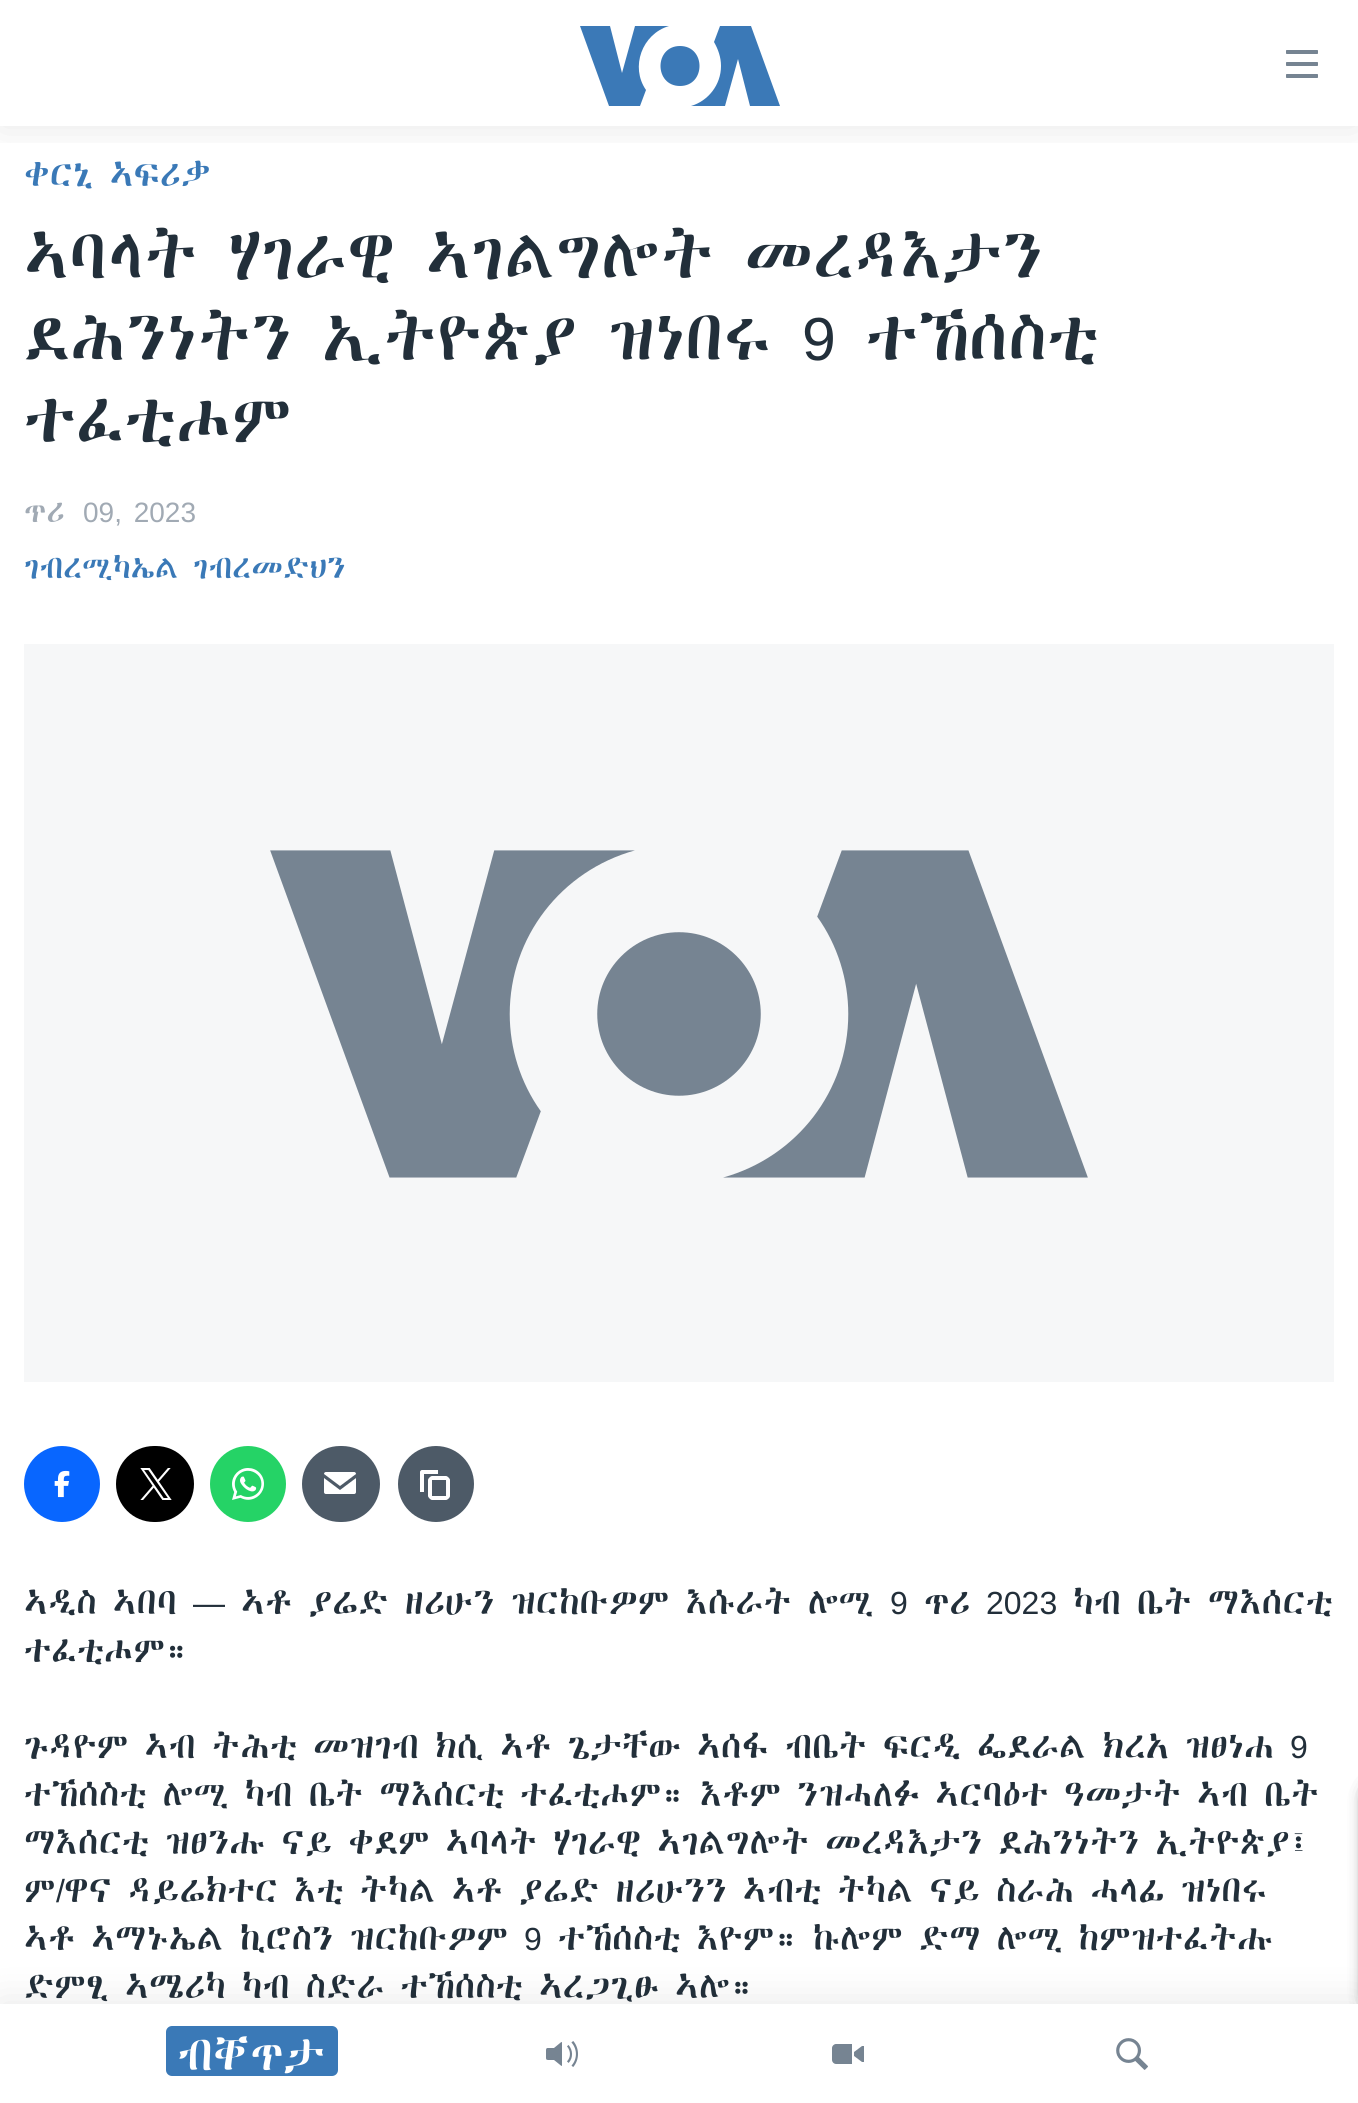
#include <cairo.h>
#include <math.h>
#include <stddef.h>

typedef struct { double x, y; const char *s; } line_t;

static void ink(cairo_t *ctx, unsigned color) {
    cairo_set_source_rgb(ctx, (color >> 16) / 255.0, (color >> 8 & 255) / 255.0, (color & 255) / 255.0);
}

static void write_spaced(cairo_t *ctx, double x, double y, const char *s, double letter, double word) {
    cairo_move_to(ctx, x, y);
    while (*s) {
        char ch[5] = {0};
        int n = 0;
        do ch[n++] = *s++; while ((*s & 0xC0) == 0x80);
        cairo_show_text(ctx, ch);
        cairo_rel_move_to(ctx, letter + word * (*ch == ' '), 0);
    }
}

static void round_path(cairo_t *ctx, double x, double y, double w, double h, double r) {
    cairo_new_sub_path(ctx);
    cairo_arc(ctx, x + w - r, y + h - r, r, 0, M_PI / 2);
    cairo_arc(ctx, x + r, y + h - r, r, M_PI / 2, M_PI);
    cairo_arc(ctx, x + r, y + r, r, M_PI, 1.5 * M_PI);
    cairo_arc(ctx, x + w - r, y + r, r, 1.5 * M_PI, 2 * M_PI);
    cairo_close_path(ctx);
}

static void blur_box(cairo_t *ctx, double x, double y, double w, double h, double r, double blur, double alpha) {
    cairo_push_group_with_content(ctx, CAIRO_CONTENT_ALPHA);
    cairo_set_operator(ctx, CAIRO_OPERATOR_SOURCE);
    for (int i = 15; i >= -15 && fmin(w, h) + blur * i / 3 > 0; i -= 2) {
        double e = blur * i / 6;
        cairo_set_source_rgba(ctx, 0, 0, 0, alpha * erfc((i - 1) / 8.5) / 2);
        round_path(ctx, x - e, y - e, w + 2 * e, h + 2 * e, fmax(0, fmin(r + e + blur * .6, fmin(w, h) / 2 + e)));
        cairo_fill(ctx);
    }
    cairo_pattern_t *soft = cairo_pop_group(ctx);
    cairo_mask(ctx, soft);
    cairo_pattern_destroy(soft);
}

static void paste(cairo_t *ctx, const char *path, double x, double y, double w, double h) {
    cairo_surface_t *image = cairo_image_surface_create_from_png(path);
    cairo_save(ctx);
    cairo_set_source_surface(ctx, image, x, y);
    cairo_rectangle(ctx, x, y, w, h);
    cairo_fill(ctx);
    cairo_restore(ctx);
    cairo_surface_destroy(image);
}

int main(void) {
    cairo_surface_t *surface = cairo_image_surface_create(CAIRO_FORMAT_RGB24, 1358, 2103);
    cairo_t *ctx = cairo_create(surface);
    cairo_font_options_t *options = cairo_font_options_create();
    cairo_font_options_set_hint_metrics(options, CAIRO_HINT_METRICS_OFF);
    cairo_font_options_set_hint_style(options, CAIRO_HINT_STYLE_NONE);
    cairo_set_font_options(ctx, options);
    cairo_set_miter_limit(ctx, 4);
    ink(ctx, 0xFFFFFF);
    cairo_paint(ctx);
    cairo_select_font_face(ctx, "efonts", CAIRO_FONT_SLANT_NORMAL, CAIRO_FONT_WEIGHT_NORMAL);
    cairo_set_font_size(ctx, 32);
    ink(ctx, 0x3A79B7);
    cairo_move_to(ctx, 24, 186);
    cairo_show_text(ctx, "ቀርኒ ኣፍሪቃ");
    cairo_set_font_size(ctx, 60.75);
    ink(ctx, 0x222F3A);
    cairo_move_to(ctx, 24, 278);
    cairo_show_text(ctx, "ኣባላት ሃገራዊ ኣገልግሎት መረዳእታን");
    cairo_move_to(ctx, 24, 360);
    cairo_show_text(ctx, "ደሕንነትን ኢትዮጵያ ዝነበሩ");
    cairo_select_font_face(ctx, "Liberation Sans", CAIRO_FONT_SLANT_NORMAL, CAIRO_FONT_WEIGHT_NORMAL);
    cairo_move_to(ctx, 802, 360);
    cairo_show_text(ctx, "9");
    cairo_select_font_face(ctx, "efonts", CAIRO_FONT_SLANT_NORMAL, CAIRO_FONT_WEIGHT_NORMAL);
    cairo_move_to(ctx, 866, 360);
    cairo_show_text(ctx, "ተኸሰስቲ");
    cairo_move_to(ctx, 24, 442);
    cairo_show_text(ctx, "ተፈቲሖም");
    cairo_set_font_size(ctx, 28);
    ink(ctx, 0xA1AAB4);
    cairo_move_to(ctx, 24, 522);
    cairo_show_text(ctx, "ጥሪ");
    cairo_select_font_face(ctx, "Liberation Sans", CAIRO_FONT_SLANT_NORMAL, CAIRO_FONT_WEIGHT_NORMAL);
    write_spaced(ctx, 83, 522, "09, 2023", 0, 4);
    cairo_select_font_face(ctx, "efonts", CAIRO_FONT_SLANT_NORMAL, CAIRO_FONT_WEIGHT_NORMAL);
    ink(ctx, 0x3A79B7);
    cairo_move_to(ctx, 24, 578);
    cairo_show_text(ctx, "ገብረሚካኤል ገብረመድህን");
    ink(ctx, 0xF6F7F8);
    cairo_rectangle(ctx, 24, 644, 1310, 738);
    cairo_fill(ctx);
    paste(ctx, "media/1.png", 270, 850, 818, 328);
    ink(ctx, 0x0866FF);
    cairo_arc(ctx, 62, 1484, 38, 0, 2 * M_PI);
    cairo_fill(ctx);
    paste(ctx, "media/2.png", 54, 1470, 16, 28);
    ink(ctx, 0x000000);
    round_path(ctx, 116, 1446, 78, 76, 38);
    cairo_fill(ctx);
    paste(ctx, "media/3.png", 140, 1468, 32, 32);
    ink(ctx, 0x25D366);
    cairo_arc(ctx, 248, 1484, 38, 0, 2 * M_PI);
    cairo_fill(ctx);
    paste(ctx, "media/4.png", 232, 1468, 32, 32);
    ink(ctx, 0x4D5A67);
    round_path(ctx, 302, 1446, 78, 76, 38);
    cairo_fill(ctx);
    paste(ctx, "media/5.png", 324, 1472, 32, 22);
    cairo_arc(ctx, 436, 1484, 38, 0, 2 * M_PI);
    cairo_fill(ctx);
    paste(ctx, "media/6.png", 420, 1470, 30, 30);
    cairo_set_font_size(ctx, 32);
    ink(ctx, 0x222F3A);
    cairo_move_to(ctx, 241, 1614);
    cairo_show_text(ctx, "ኣቶ ያሬድ ዘሪሁን ዝርከቡዎም እሱራት ሎሚ");
    cairo_select_font_face(ctx, "Liberation Sans", CAIRO_FONT_SLANT_NORMAL, CAIRO_FONT_WEIGHT_NORMAL);
    cairo_move_to(ctx, 890, 1614);
    cairo_show_text(ctx, "9");
    cairo_select_font_face(ctx, "efonts", CAIRO_FONT_SLANT_NORMAL, CAIRO_FONT_WEIGHT_NORMAL);
    cairo_move_to(ctx, 924, 1614);
    cairo_show_text(ctx, "ጥሪ");
    cairo_select_font_face(ctx, "Liberation Sans", CAIRO_FONT_SLANT_NORMAL, CAIRO_FONT_WEIGHT_NORMAL);
    cairo_move_to(ctx, 986, 1614);
    cairo_show_text(ctx, "2023");
    cairo_select_font_face(ctx, "efonts", CAIRO_FONT_SLANT_NORMAL, CAIRO_FONT_WEIGHT_NORMAL);
    {
        static const line_t items[] = {
            {1073, 1614, "ካብ ቤት ማእሰርቲ"},
            {24, 1662, "ተፈቲሖም።"},
            {24, 1614, "ኣዲስ ኣበባ"},
        };
        for (size_t i = 0; i < sizeof items / sizeof *items; i++) {
            cairo_move_to(ctx, items[i].x, items[i].y);
            cairo_show_text(ctx, items[i].s);
        }
    }
    cairo_select_font_face(ctx, "Liberation Sans", CAIRO_FONT_SLANT_NORMAL, CAIRO_FONT_WEIGHT_NORMAL);
    cairo_move_to(ctx, 193, 1614);
    cairo_show_text(ctx, "—");
    cairo_select_font_face(ctx, "efonts", CAIRO_FONT_SLANT_NORMAL, CAIRO_FONT_WEIGHT_NORMAL);
    cairo_move_to(ctx, 24, 1758);
    cairo_show_text(ctx, "ጉዳዮም ኣብ ትሕቲ መዝገብ ክሲ ኣቶ ጌታቸው ኣሰፋ ብቤት ፍርዲ ፌደራል ክረአ ዝፀነሐ");
    cairo_select_font_face(ctx, "Liberation Sans", CAIRO_FONT_SLANT_NORMAL, CAIRO_FONT_WEIGHT_NORMAL);
    cairo_move_to(ctx, 1290, 1758);
    cairo_show_text(ctx, "9");
    cairo_select_font_face(ctx, "efonts", CAIRO_FONT_SLANT_NORMAL, CAIRO_FONT_WEIGHT_NORMAL);
    {
        static const line_t items[] = {
            {24, 1806, "ተኸሰስቲ ሎሚ ካብ ቤት ማእሰርቲ ተፈቲሖም። እቶም ንዝሓለፉ ኣርባዕተ ዓመታት ኣብ ቤት"},
            {24, 1854, "ማእሰርቲ ዝፀንሑ ናይ ቀደም ኣባላት ሃገራዊ ኣገልግሎት መረዳእታን ደሕንነትን ኢትዮጵያ፤"},
            {24, 1902, "ም"},
        };
        for (size_t i = 0; i < sizeof items / sizeof *items; i++) {
            cairo_move_to(ctx, items[i].x, items[i].y);
            cairo_show_text(ctx, items[i].s);
        }
    }
    cairo_select_font_face(ctx, "Liberation Sans", CAIRO_FONT_SLANT_NORMAL, CAIRO_FONT_WEIGHT_NORMAL);
    cairo_move_to(ctx, 56, 1902);
    cairo_show_text(ctx, "/");
    cairo_select_font_face(ctx, "efonts", CAIRO_FONT_SLANT_NORMAL, CAIRO_FONT_WEIGHT_NORMAL);
    cairo_move_to(ctx, 64, 1902);
    cairo_show_text(ctx, "ዋና ዳይሬክተር እቲ ትካል ኣቶ ያሬድ ዘሪሁንን ኣብቲ ትካል ናይ ስራሕ ሓላፊ ዝነበሩ");
    cairo_move_to(ctx, 24, 1950);
    cairo_show_text(ctx, "ኣቶ ኣማኑኤል ኪሮስን ዝርከቡዎም");
    cairo_select_font_face(ctx, "Liberation Sans", CAIRO_FONT_SLANT_NORMAL, CAIRO_FONT_WEIGHT_NORMAL);
    cairo_move_to(ctx, 524, 1950);
    cairo_show_text(ctx, "9");
    cairo_select_font_face(ctx, "efonts", CAIRO_FONT_SLANT_NORMAL, CAIRO_FONT_WEIGHT_NORMAL);
    cairo_move_to(ctx, 558, 1950);
    cairo_show_text(ctx, "ተኸሰስቲ እዮም። ኩሎም ድማ ሎሚ ከምዝተፈትሑ");
    cairo_move_to(ctx, 24, 1998);
    cairo_show_text(ctx, "ድምፂ ኣሜሪካ ካብ ስድራ ተኸሰስቲ ኣረጋጊፁ ኣሎ።");
    ink(ctx, 0x000000);
    blur_box(ctx, 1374, 1790, 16, 214, 2, 10, 0.85);
    blur_box(ctx, 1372, 1790, 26, 214, 10, 10, 0.85);
    cairo_save(ctx);
    cairo_rectangle(ctx, 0, 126, 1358, 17);
    cairo_clip(ctx);
    blur_box(ctx, 0, 0, 1358, 126, 0, 20, 0.1);
    cairo_restore(ctx);
    ink(ctx, 0x3B79B7);
    cairo_new_path(ctx);
    cairo_move_to(ctx, 646, 90);
    cairo_line_to(ctx, 640, 106);
    cairo_line_to(ctx, 609, 106);
    cairo_line_to(ctx, 580, 26);
    cairo_line_to(ctx, 610, 26);
    cairo_line_to(ctx, 622, 73);
    cairo_line_to(ctx, 635, 26);
    cairo_line_to(ctx, 669, 26);
    cairo_curve_to(ctx, 642, 34, 630, 67, 646, 90);
    cairo_close_path(ctx);
    cairo_move_to(ctx, 680, 46);
    cairo_curve_to(ctx, 654, 46, 654, 86, 680, 86);
    cairo_curve_to(ctx, 706, 86, 706, 46, 680, 46);
    cairo_close_path(ctx);
    cairo_move_to(ctx, 721, 66);
    cairo_curve_to(ctx, 721, 85, 708, 101, 691, 106);
    cairo_line_to(ctx, 725, 106);
    cairo_line_to(ctx, 738, 59);
    cairo_line_to(ctx, 750, 106);
    cairo_line_to(ctx, 780, 106);
    cairo_line_to(ctx, 751, 26);
    cairo_line_to(ctx, 720, 26);
    cairo_line_to(ctx, 714, 42);
    cairo_curve_to(ctx, 718, 49, 721, 57, 721, 66);
    cairo_close_path(ctx);
    cairo_fill(ctx);
    paste(ctx, "media/7.png", 1286, 50, 32, 28);
    ink(ctx, 0x000000);
    blur_box(ctx, 0, 2004, 1358, 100, 0, 20, 0.1);
    ink(ctx, 0xFFFFFF);
    cairo_rectangle(ctx, 0, 2004, 1358, 99);
    cairo_fill(ctx);
    ink(ctx, 0x3A79B7);
    round_path(ctx, 166, 2026, 172, 50, 6);
    cairo_fill(ctx);
    cairo_set_font_size(ctx, 42);
    ink(ctx, 0xFFFFFF);
    cairo_move_to(ctx, 177, 2070);
    cairo_show_text(ctx, "ብቐጥታ");
    paste(ctx, "media/8.png", 546, 2041, 32, 26);
    paste(ctx, "media/9.png", 832, 2044, 32, 20);
    paste(ctx, "media/10.png", 1116, 2038, 32, 32);
    cairo_surface_write_to_png(surface, "image.png");
    cairo_font_options_destroy(options);
    cairo_destroy(ctx);
    cairo_surface_destroy(surface);
    return 0;
}
